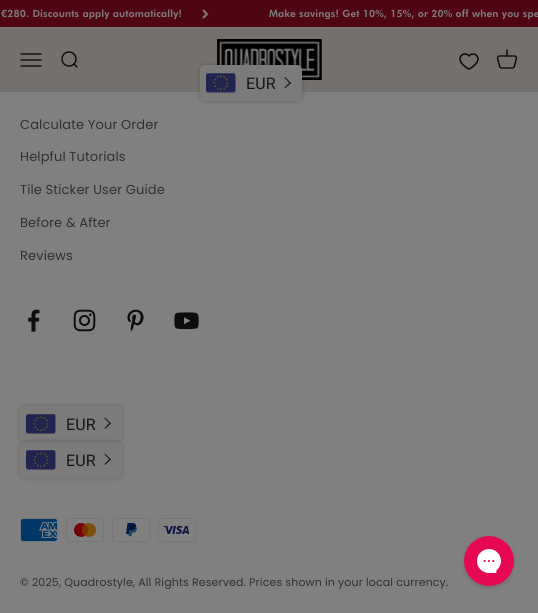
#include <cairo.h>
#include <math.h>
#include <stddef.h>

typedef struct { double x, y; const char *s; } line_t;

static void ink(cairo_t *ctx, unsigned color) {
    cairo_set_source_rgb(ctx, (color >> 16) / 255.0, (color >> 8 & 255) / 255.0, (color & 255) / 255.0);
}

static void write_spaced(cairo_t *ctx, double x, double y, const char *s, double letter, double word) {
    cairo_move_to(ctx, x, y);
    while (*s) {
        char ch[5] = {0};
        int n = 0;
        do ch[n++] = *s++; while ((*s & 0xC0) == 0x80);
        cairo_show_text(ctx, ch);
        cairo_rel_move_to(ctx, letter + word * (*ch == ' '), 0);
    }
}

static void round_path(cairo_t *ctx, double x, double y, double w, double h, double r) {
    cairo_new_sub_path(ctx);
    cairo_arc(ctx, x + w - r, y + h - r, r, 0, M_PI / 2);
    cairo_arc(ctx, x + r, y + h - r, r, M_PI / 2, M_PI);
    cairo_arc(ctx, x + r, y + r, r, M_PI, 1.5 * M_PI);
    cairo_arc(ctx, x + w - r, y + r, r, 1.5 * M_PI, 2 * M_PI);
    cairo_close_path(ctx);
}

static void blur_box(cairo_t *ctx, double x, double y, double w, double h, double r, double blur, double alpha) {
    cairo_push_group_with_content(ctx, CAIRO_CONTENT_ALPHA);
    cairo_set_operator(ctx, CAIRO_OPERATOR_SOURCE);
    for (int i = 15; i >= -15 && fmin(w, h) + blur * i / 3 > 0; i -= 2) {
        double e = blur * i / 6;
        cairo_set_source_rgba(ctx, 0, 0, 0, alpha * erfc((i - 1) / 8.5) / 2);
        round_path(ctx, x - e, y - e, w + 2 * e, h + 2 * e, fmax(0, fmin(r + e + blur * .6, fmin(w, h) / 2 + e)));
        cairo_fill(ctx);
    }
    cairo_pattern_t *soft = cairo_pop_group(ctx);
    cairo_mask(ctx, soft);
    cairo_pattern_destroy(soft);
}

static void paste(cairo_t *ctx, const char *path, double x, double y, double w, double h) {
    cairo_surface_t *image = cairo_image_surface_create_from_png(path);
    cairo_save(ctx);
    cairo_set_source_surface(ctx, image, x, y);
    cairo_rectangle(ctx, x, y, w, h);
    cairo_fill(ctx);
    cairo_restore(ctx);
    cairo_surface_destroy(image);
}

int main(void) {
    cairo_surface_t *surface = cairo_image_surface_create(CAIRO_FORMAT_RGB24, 538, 613);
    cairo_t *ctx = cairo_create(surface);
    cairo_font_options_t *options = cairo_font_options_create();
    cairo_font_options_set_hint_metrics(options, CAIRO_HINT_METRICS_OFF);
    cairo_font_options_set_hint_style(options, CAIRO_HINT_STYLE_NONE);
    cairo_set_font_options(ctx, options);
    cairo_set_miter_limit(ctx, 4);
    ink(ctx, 0x808080);
    cairo_paint(ctx);
    ink(ctx, 0x500513);
    cairo_rectangle(ctx, 0, 0, 538, 27);
    cairo_fill(ctx);
    cairo_select_font_face(ctx, "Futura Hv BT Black", CAIRO_FONT_SLANT_NORMAL, CAIRO_FONT_WEIGHT_NORMAL);
    cairo_set_font_size(ctx, 10);
    ink(ctx, 0x7D7B7A);
    write_spaced(ctx, 1, 17, "€280. Discounts apply automatically!", 0.13, 0);
    cairo_new_path(ctx);
    cairo_move_to(ctx, 203, 18);
    cairo_line_to(ctx, 207, 14);
    cairo_line_to(ctx, 203, 10);
    cairo_stroke(ctx);
    write_spaced(ctx, 269, 17, "Make savings! Get 10%, 15%, or 20% off when you spe", 0.13, 0);
    ink(ctx, 0x74706D);
    cairo_rectangle(ctx, 0, 27, 538, 65);
    cairo_fill(ctx);
    paste(ctx, "media/1.png", 20, 53, 22, 14);
    paste(ctx, "media/2.png", 61, 51, 17, 17);
    paste(ctx, "media/3.png", 216, 39, 106, 41);
    paste(ctx, "media/4.png", 459, 53, 20, 17);
    paste(ctx, "media/5.png", 496, 49, 22, 20);
    ink(ctx, 0x11161B);
    blur_box(ctx, 200, 65, 102, 36, 5, 2.5, 0.25);
    ink(ctx, 0x7D7B7A);
    round_path(ctx, 200, 65, 102, 36, 5);
    cairo_fill(ctx);
    paste(ctx, "media/6.png", 206, 73, 30, 20);
    cairo_select_font_face(ctx, "Roboto", CAIRO_FONT_SLANT_NORMAL, CAIRO_FONT_WEIGHT_NORMAL);
    cairo_set_font_size(ctx, 16);
    ink(ctx, 0x11161B);
    write_spaced(ctx, 246, 89, "EUR", 0.13, 0);
    cairo_new_path(ctx);
    cairo_move_to(ctx, 284.5, 78);
    cairo_line_to(ctx, 285, 77);
    cairo_line_to(ctx, 291, 83);
    cairo_line_to(ctx, 290, 83.5);
    cairo_close_path(ctx);
    cairo_fill(ctx);
    cairo_new_path(ctx);
    cairo_move_to(ctx, 284.5, 87.5);
    cairo_line_to(ctx, 290, 82);
    cairo_line_to(ctx, 291, 83);
    cairo_line_to(ctx, 285, 88.5);
    cairo_close_path(ctx);
    cairo_fill(ctx);
    cairo_select_font_face(ctx, "Poppins", CAIRO_FONT_SLANT_NORMAL, CAIRO_FONT_WEIGHT_NORMAL);
    cairo_set_font_size(ctx, 13);
    ink(ctx, 0x303030);
    {
        static const line_t items[] = {
            {20, 129, "Calculate Your Order"},
            {20, 161, "Helpful Tutorials"},
            {20, 194, "Tile Sticker User Guide"},
            {20, 227, "Before & After"},
            {20, 260, "Reviews"},
        };
        for (size_t i = 0; i < sizeof items / sizeof *items; i++) {
            write_spaced(ctx, items[i].x, items[i].y, items[i].s, 0.13, 0);
        }
    }
    paste(ctx, "media/7.png", 28, 309, 12, 23);
    paste(ctx, "media/8.png", 73, 309, 23, 23);
    paste(ctx, "media/9.png", 127, 309, 17, 23);
    paste(ctx, "media/10.png", 174, 312, 25, 18);
    ink(ctx, 0x11161B);
    blur_box(ctx, 20, 406, 102, 36, 5, 2.5, 0.25);
    ink(ctx, 0x7D7B7A);
    round_path(ctx, 20, 406, 102, 36, 5);
    cairo_fill(ctx);
    paste(ctx, "media/11.png", 26, 414, 30, 20);
    cairo_select_font_face(ctx, "Roboto", CAIRO_FONT_SLANT_NORMAL, CAIRO_FONT_WEIGHT_NORMAL);
    cairo_set_font_size(ctx, 16);
    ink(ctx, 0x11161B);
    write_spaced(ctx, 66, 430, "EUR", 0.13, 0);
    cairo_new_path(ctx);
    cairo_move_to(ctx, 104.5, 418.5);
    cairo_line_to(ctx, 105, 417.5);
    cairo_line_to(ctx, 111, 423.5);
    cairo_line_to(ctx, 110, 424);
    cairo_close_path(ctx);
    cairo_fill(ctx);
    cairo_new_path(ctx);
    cairo_move_to(ctx, 104.5, 428);
    cairo_line_to(ctx, 110, 422.5);
    cairo_line_to(ctx, 111, 423.5);
    cairo_line_to(ctx, 105, 429);
    cairo_close_path(ctx);
    cairo_fill(ctx);
    ink(ctx, 0x11161B);
    blur_box(ctx, 20, 442, 102, 36, 5, 2.5, 0.25);
    ink(ctx, 0x7D7B7A);
    round_path(ctx, 20, 442, 102, 36, 5);
    cairo_fill(ctx);
    paste(ctx, "media/11.png", 26, 450, 30, 20);
    ink(ctx, 0x11161B);
    write_spaced(ctx, 66, 466, "EUR", 0.13, 0);
    cairo_new_path(ctx);
    cairo_move_to(ctx, 104.5, 454.5);
    cairo_line_to(ctx, 105, 453.5);
    cairo_line_to(ctx, 111, 459.5);
    cairo_line_to(ctx, 110, 460);
    cairo_close_path(ctx);
    cairo_fill(ctx);
    cairo_new_path(ctx);
    cairo_move_to(ctx, 104.5, 464);
    cairo_line_to(ctx, 110, 458.5);
    cairo_line_to(ctx, 111, 459.5);
    cairo_line_to(ctx, 105, 465);
    cairo_close_path(ctx);
    cairo_fill(ctx);
    paste(ctx, "media/12.png", 20, 518, 38, 24);
    paste(ctx, "media/13.png", 66, 518, 38, 24);
    paste(ctx, "media/14.png", 112, 518, 38, 24);
    paste(ctx, "media/15.png", 158, 518, 38, 24);
    cairo_select_font_face(ctx, "Poppins", CAIRO_FONT_SLANT_NORMAL, CAIRO_FONT_WEIGHT_NORMAL);
    cairo_set_font_size(ctx, 11);
    ink(ctx, 0x303030);
    write_spaced(ctx, 20, 586, "© 2025, Quadrostyle, All Rights Reserved. Prices shown in your local currency.", 0.13, 0);
    paste(ctx, "media/16.png", 462, 536, 54, 54);
    cairo_surface_write_to_png(surface, "image.png");
    cairo_font_options_destroy(options);
    cairo_destroy(ctx);
    cairo_surface_destroy(surface);
    return 0;
}
